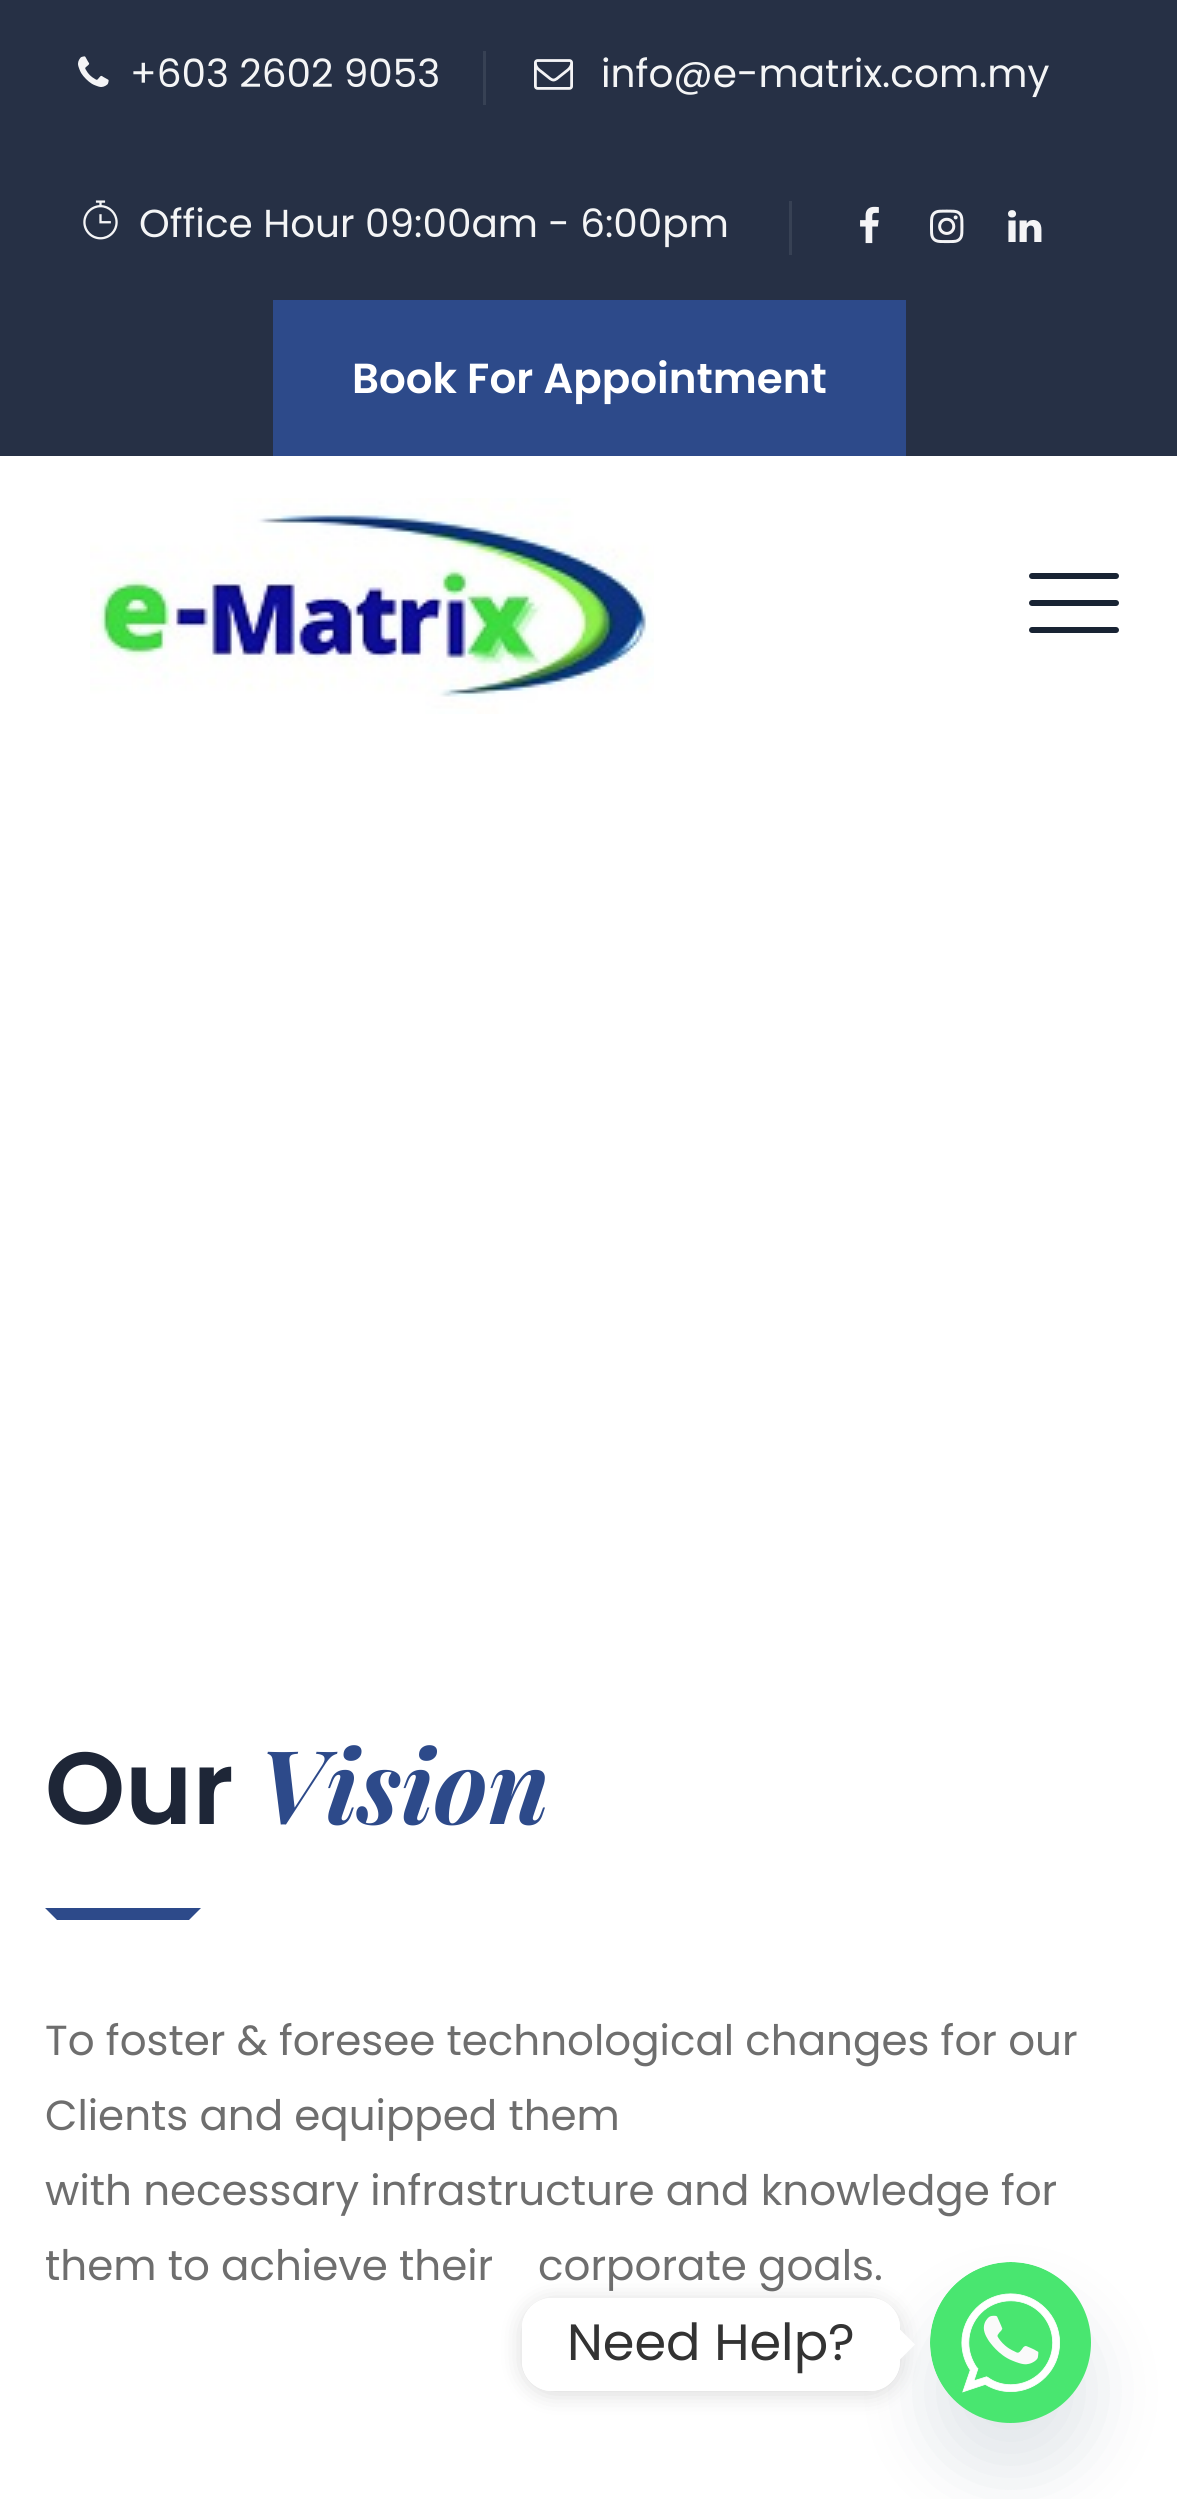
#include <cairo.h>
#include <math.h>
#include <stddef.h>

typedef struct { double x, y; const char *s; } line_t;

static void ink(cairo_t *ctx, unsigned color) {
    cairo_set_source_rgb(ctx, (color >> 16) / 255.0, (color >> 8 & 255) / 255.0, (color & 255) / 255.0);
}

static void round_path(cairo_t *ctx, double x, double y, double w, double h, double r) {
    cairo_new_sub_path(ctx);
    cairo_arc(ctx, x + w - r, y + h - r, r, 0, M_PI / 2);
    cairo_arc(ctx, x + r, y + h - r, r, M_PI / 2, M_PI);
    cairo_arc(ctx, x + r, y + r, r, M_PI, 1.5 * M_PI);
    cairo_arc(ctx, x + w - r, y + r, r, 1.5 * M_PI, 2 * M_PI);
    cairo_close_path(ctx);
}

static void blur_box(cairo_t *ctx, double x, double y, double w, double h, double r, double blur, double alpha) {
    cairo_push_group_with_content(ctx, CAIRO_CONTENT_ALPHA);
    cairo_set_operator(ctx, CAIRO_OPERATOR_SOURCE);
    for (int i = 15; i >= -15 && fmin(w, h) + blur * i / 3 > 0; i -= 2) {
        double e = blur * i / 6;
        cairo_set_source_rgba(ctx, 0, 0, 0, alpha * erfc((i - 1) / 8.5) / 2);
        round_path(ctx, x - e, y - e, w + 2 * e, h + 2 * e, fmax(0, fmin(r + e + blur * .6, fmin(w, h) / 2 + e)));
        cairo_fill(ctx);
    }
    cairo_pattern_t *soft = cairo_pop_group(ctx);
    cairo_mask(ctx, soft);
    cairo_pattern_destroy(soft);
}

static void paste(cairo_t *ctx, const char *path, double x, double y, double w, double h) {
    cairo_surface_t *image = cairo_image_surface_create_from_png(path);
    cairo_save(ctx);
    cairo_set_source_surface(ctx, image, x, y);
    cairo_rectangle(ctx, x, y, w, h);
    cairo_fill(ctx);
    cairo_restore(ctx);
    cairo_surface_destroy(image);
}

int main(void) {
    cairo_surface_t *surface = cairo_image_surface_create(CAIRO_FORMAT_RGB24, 1177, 2499);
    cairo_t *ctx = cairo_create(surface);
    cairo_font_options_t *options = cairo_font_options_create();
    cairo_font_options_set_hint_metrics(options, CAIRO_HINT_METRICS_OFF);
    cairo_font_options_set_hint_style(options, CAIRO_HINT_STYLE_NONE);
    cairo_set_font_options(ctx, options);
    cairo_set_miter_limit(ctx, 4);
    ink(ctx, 0xFFFFFF);
    cairo_paint(ctx);
    ink(ctx, 0x263045);
    cairo_rectangle(ctx, 0, 0, 1177, 456);
    cairo_fill(ctx);
    paste(ctx, "media/1.png", 78, 56, 31, 31);
    cairo_select_font_face(ctx, "Poppins", CAIRO_FONT_SLANT_NORMAL, CAIRO_FONT_WEIGHT_NORMAL);
    cairo_set_font_size(ctx, 39);
    ink(ctx, 0xF4F5F6);
    cairo_move_to(ctx, 130, 87);
    cairo_show_text(ctx, "+603 2602 9053");
    ink(ctx, 0x374154);
    cairo_rectangle(ctx, 483, 51, 3, 54);
    cairo_fill(ctx);
    paste(ctx, "media/2.png", 534, 59, 39, 31);
    ink(ctx, 0xF4F5F6);
    cairo_move_to(ctx, 601, 87);
    cairo_show_text(ctx, "info@e-matrix.com.my");
    paste(ctx, "media/3.png", 83, 200, 35, 40);
    cairo_move_to(ctx, 139, 237);
    cairo_show_text(ctx, "Office Hour 09:00am - 6:00pm");
    ink(ctx, 0x374154);
    cairo_rectangle(ctx, 789, 201, 3, 54);
    cairo_fill(ctx);
    paste(ctx, "media/4.png", 860, 206, 19, 38);
    paste(ctx, "media/5.png", 930, 209, 34, 35);
    paste(ctx, "media/6.png", 1008, 210, 34, 32);
    ink(ctx, 0x2D4A8A);
    cairo_rectangle(ctx, 273, 300, 633, 156);
    cairo_fill(ctx);
    cairo_select_font_face(ctx, "Poppins SemiBold", CAIRO_FONT_SLANT_NORMAL, CAIRO_FONT_WEIGHT_NORMAL);
    cairo_set_font_size(ctx, 42);
    ink(ctx, 0xFFFFFF);
    cairo_move_to(ctx, 352, 393);
    cairo_show_text(ctx, "Book For Appointment");
    paste(ctx, "media/7.png", 90, 498, 564, 216);
    ink(ctx, 0x182333);
    round_path(ctx, 1029, 600, 90, 6, 3);
    cairo_fill(ctx);
    round_path(ctx, 1029, 573, 90, 6, 3);
    cairo_fill(ctx);
    round_path(ctx, 1029, 627, 90, 6, 3);
    cairo_fill(ctx);
    cairo_set_font_size(ctx, 102);
    ink(ctx, 0x1E2637);
    cairo_move_to(ctx, 45, 1824);
    cairo_show_text(ctx, "Our");
    cairo_select_font_face(ctx, "Playfair Display", CAIRO_FONT_SLANT_ITALIC, CAIRO_FONT_WEIGHT_BOLD);
    ink(ctx, 0x2D4A8A);
    cairo_move_to(ctx, 258, 1824);
    cairo_show_text(ctx, "Vision");
    cairo_new_path(ctx);
    cairo_move_to(ctx, 45, 1908);
    cairo_line_to(ctx, 201, 1908);
    cairo_line_to(ctx, 189, 1920);
    cairo_line_to(ctx, 57, 1920);
    cairo_close_path(ctx);
    cairo_fill(ctx);
    cairo_select_font_face(ctx, "Poppins", CAIRO_FONT_SLANT_NORMAL, CAIRO_FONT_WEIGHT_NORMAL);
    cairo_set_font_size(ctx, 42);
    ink(ctx, 0x6E6E6E);
    {
        static const line_t items[] = {
            {45, 2055, "To foster & foresee technological changes for our"},
            {45, 2130, "Clients and equipped them"},
            {45, 2205, "with necessary infrastructure and knowledge for"},
            {45, 2280, "them to achieve their    corporate goals."},
        };
        for (size_t i = 0; i < sizeof items / sizeof *items; i++) {
            cairo_move_to(ctx, items[i].x, items[i].y);
            cairo_show_text(ctx, items[i].s);
        }
    }
    ink(ctx, 0x49687E);
    blur_box(ctx, 930, 2310, 162, 162, 81, 36, 0.16);
    paste(ctx, "media/8.png", 930, 2262, 161, 161);
    cairo_save(ctx);
    cairo_set_fill_rule(ctx, CAIRO_FILL_RULE_EVEN_ODD);
    cairo_new_path(ctx);
    cairo_move_to(ctx, 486, 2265);
    cairo_line_to(ctx, 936, 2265);
    cairo_line_to(ctx, 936, 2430);
    cairo_line_to(ctx, 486, 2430);
    cairo_close_path(ctx);
    cairo_move_to(ctx, 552, 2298);
    cairo_line_to(ctx, 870, 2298);
    cairo_curve_to(ctx, 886.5, 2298, 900, 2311.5, 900, 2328);
    cairo_line_to(ctx, 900, 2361);
    cairo_curve_to(ctx, 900, 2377.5, 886.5, 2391, 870, 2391);
    cairo_line_to(ctx, 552, 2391);
    cairo_curve_to(ctx, 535.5, 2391, 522, 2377.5, 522, 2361);
    cairo_line_to(ctx, 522, 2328);
    cairo_curve_to(ctx, 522, 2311.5, 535.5, 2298, 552, 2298);
    cairo_close_path(ctx);
    cairo_clip(ctx);
    ink(ctx, 0x000000);
    blur_box(ctx, 522, 2301, 378, 93, 30, 11.5, 0.15);
    cairo_restore(ctx);
    ink(ctx, 0xFFFFFF);
    round_path(ctx, 522, 2298, 378, 93, 30);
    cairo_fill(ctx);
    cairo_set_font_size(ctx, 51);
    ink(ctx, 0x333333);
    cairo_move_to(ctx, 567, 2360);
    cairo_show_text(ctx, "Need Help?");
    ink(ctx, 0xFFFFFF);
    cairo_new_path(ctx);
    cairo_move_to(ctx, 900, 2359.5);
    cairo_line_to(ctx, 900, 2329.5);
    cairo_line_to(ctx, 915, 2344.5);
    cairo_close_path(ctx);
    cairo_fill(ctx);
    cairo_surface_write_to_png(surface, "image.png");
    cairo_font_options_destroy(options);
    cairo_destroy(ctx);
    cairo_surface_destroy(surface);
    return 0;
}
